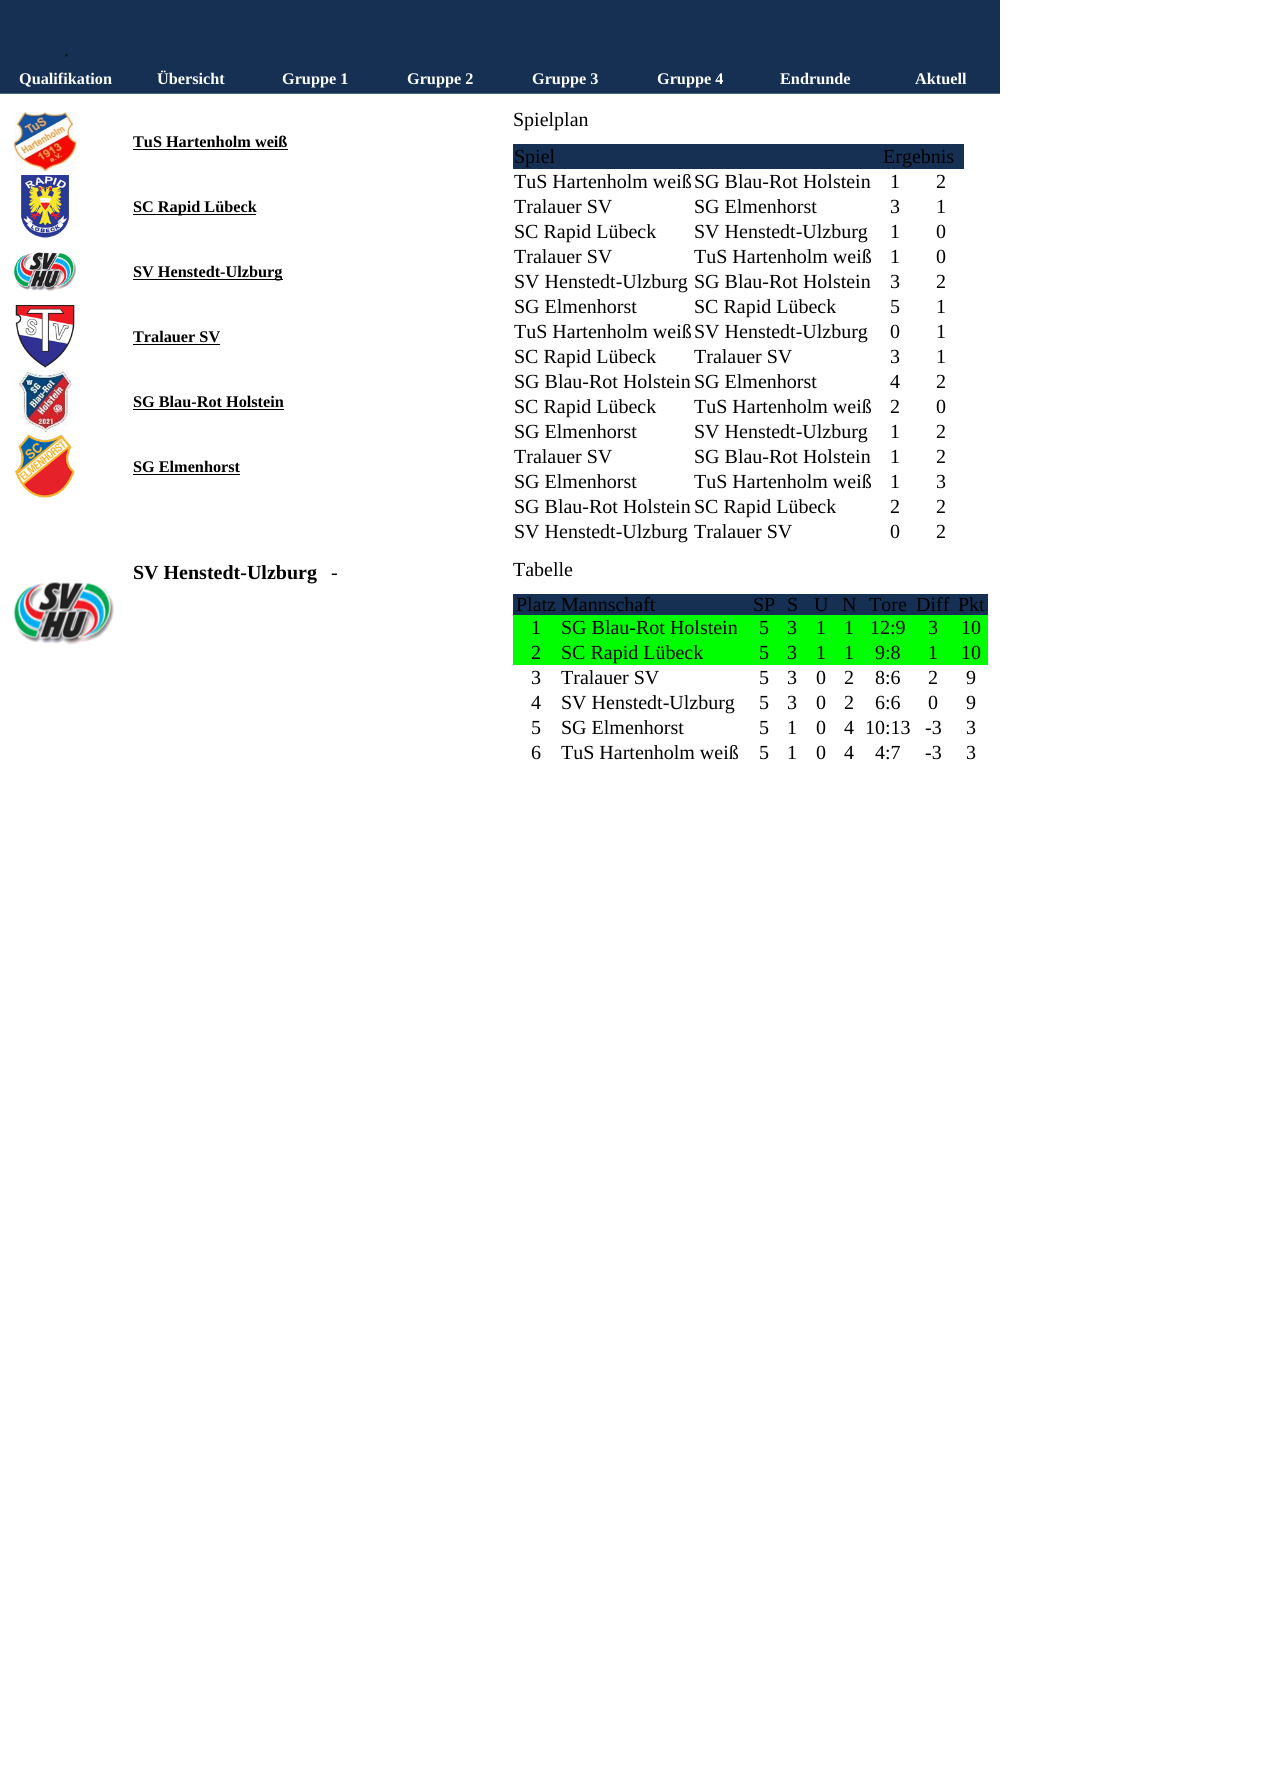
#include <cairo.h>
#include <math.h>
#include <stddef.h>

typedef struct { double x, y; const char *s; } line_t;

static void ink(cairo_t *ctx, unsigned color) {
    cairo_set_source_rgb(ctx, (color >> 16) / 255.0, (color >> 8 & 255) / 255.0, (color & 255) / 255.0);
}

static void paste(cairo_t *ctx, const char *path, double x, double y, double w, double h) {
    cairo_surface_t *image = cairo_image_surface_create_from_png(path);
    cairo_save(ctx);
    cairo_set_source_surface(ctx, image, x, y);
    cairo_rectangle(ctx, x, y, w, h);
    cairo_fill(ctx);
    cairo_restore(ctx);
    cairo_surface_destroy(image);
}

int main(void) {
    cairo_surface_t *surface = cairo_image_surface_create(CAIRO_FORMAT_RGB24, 1263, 1782);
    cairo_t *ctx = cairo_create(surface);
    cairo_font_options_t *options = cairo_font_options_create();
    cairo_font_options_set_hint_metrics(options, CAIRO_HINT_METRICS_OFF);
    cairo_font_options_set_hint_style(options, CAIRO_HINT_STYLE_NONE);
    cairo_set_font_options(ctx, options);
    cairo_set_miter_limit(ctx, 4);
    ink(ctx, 0xFFFFFF);
    cairo_paint(ctx);
    paste(ctx, "media/1.png", 0, 0, 1000, 94);
    cairo_select_font_face(ctx, "Liberation Serif", CAIRO_FONT_SLANT_NORMAL, CAIRO_FONT_WEIGHT_BOLD);
    cairo_set_font_size(ctx, 16.25);
    ink(ctx, 0xFFFFFF);
    {
        static const line_t items[] = {
            {19, 84, "Qualifikation"},
            {157, 84, "Übersicht"},
            {282, 84, "Gruppe 1"},
            {407, 84, "Gruppe 2"},
            {532, 84, "Gruppe 3"},
            {657, 84, "Gruppe 4"},
            {780, 84, "Endrunde"},
            {915, 84, "Aktuell"},
        };
        for (size_t i = 0; i < sizeof items / sizeof *items; i++) {
            cairo_move_to(ctx, items[i].x, items[i].y);
            cairo_show_text(ctx, items[i].s);
        }
    }
    paste(ctx, "media/2.png", 13, 112, 64, 60);
    ink(ctx, 0x000000);
    cairo_move_to(ctx, 133, 147);
    cairo_show_text(ctx, "TuS Hartenholm weiß");
    cairo_rectangle(ctx, 133, 149, 155, 1);
    cairo_fill(ctx);
    paste(ctx, "media/3.png", 21, 175, 48, 63);
    cairo_rectangle(ctx, 133, 214, 123, 1);
    cairo_fill(ctx);
    cairo_move_to(ctx, 133, 212);
    cairo_show_text(ctx, "SC Rapid Lübeck");
    paste(ctx, "media/4.png", 13, 252, 64, 39);
    cairo_rectangle(ctx, 133, 279, 150, 1);
    cairo_fill(ctx);
    cairo_move_to(ctx, 133, 277);
    cairo_show_text(ctx, "SV Henstedt-Ulzburg");
    paste(ctx, "media/5.png", 15, 305, 60, 63);
    cairo_move_to(ctx, 133, 342);
    cairo_show_text(ctx, "Tralauer SV");
    cairo_rectangle(ctx, 133, 344, 87, 1);
    cairo_fill(ctx);
    paste(ctx, "media/6.png", 13, 370, 60, 63);
    cairo_move_to(ctx, 133, 407);
    cairo_show_text(ctx, "SG Blau-Rot Holstein");
    cairo_rectangle(ctx, 133, 409, 151, 1);
    cairo_fill(ctx);
    paste(ctx, "media/7.png", 15, 435, 60, 63);
    cairo_move_to(ctx, 133, 472);
    cairo_show_text(ctx, "SG Elmenhorst");
    cairo_rectangle(ctx, 133, 474, 107, 1);
    cairo_fill(ctx);
    cairo_set_font_size(ctx, 20);
    cairo_move_to(ctx, 133, 579);
    cairo_show_text(ctx, "SV Henstedt-Ulzburg");
    cairo_select_font_face(ctx, "Liberation Serif", CAIRO_FONT_SLANT_NORMAL, CAIRO_FONT_WEIGHT_NORMAL);
    cairo_move_to(ctx, 331, 579);
    cairo_show_text(ctx, "-");
    paste(ctx, "media/8.png", 13, 582, 101, 63);
    cairo_move_to(ctx, 513, 126);
    cairo_show_text(ctx, "Spielplan");
    ink(ctx, 0x153053);
    cairo_rectangle(ctx, 513, 144, 451, 25);
    cairo_fill(ctx);
    ink(ctx, 0x000000);
    {
        static const line_t items[] = {
            {514, 163, "Spiel"},
            {883, 163, "Ergebnis"},
            {514, 188, "TuS Hartenholm weiß"},
            {694, 188, "SG Blau-Rot Holstein"},
            {890, 188, "1"},
            {936, 188, "2"},
            {514, 213, "Tralauer SV"},
            {694, 213, "SG Elmenhorst"},
            {890, 213, "3"},
            {936, 213, "1"},
            {514, 238, "SC Rapid Lübeck"},
            {694, 238, "SV Henstedt-Ulzburg"},
            {890, 238, "1"},
            {936, 238, "0"},
            {514, 263, "Tralauer SV"},
            {694, 263, "TuS Hartenholm weiß"},
            {890, 263, "1"},
            {936, 263, "0"},
            {514, 288, "SV Henstedt-Ulzburg"},
            {694, 288, "SG Blau-Rot Holstein"},
            {890, 288, "3"},
            {936, 288, "2"},
            {514, 313, "SG Elmenhorst"},
            {694, 313, "SC Rapid Lübeck"},
            {890, 313, "5"},
            {936, 313, "1"},
            {514, 338, "TuS Hartenholm weiß"},
            {694, 338, "SV Henstedt-Ulzburg"},
            {890, 338, "0"},
            {936, 338, "1"},
            {514, 363, "SC Rapid Lübeck"},
            {694, 363, "Tralauer SV"},
            {890, 363, "3"},
            {936, 363, "1"},
            {514, 388, "SG Blau-Rot Holstein"},
            {694, 388, "SG Elmenhorst"},
            {890, 388, "4"},
            {936, 388, "2"},
            {514, 413, "SC Rapid Lübeck"},
            {694, 413, "TuS Hartenholm weiß"},
            {890, 413, "2"},
            {936, 413, "0"},
            {514, 438, "SG Elmenhorst"},
            {694, 438, "SV Henstedt-Ulzburg"},
            {890, 438, "1"},
            {936, 438, "2"},
            {514, 463, "Tralauer SV"},
            {694, 463, "SG Blau-Rot Holstein"},
            {890, 463, "1"},
            {936, 463, "2"},
            {514, 488, "SG Elmenhorst"},
            {694, 488, "TuS Hartenholm weiß"},
            {890, 488, "1"},
            {936, 488, "3"},
            {514, 513, "SG Blau-Rot Holstein"},
            {694, 513, "SC Rapid Lübeck"},
            {890, 513, "2"},
            {936, 513, "2"},
            {514, 538, "SV Henstedt-Ulzburg"},
            {694, 538, "Tralauer SV"},
            {890, 538, "0"},
            {936, 538, "2"},
            {513, 576, "Tabelle"},
        };
        for (size_t i = 0; i < sizeof items / sizeof *items; i++) {
            cairo_move_to(ctx, items[i].x, items[i].y);
            cairo_show_text(ctx, items[i].s);
        }
    }
    ink(ctx, 0x153053);
    cairo_rectangle(ctx, 513, 594, 475, 21);
    cairo_fill(ctx);
    ink(ctx, 0x000000);
    {
        static const line_t items[] = {
            {516, 611, "Platz Mannschaft"},
            {753, 611, "SP"},
            {787, 611, "S"},
            {814, 611, "U"},
            {842, 611, "N"},
            {869, 611, "Tore"},
            {916, 611, "Diff"},
            {958, 611, "Pkt"},
        };
        for (size_t i = 0; i < sizeof items / sizeof *items; i++) {
            cairo_move_to(ctx, items[i].x, items[i].y);
            cairo_show_text(ctx, items[i].s);
        }
    }
    ink(ctx, 0x00FF00);
    cairo_rectangle(ctx, 513, 615, 475, 25);
    cairo_fill(ctx);
    ink(ctx, 0x000000);
    {
        static const line_t items[] = {
            {531, 634, "1"},
            {561, 634, "SG Blau-Rot Holstein"},
            {759, 634, "5"},
            {787, 634, "3"},
            {816, 634, "1"},
            {844, 634, "1"},
            {870, 634, "12:9"},
            {928, 634, "3"},
            {961, 634, "10"},
        };
        for (size_t i = 0; i < sizeof items / sizeof *items; i++) {
            cairo_move_to(ctx, items[i].x, items[i].y);
            cairo_show_text(ctx, items[i].s);
        }
    }
    ink(ctx, 0x00FF00);
    cairo_rectangle(ctx, 513, 640, 475, 25);
    cairo_fill(ctx);
    ink(ctx, 0x000000);
    {
        static const line_t items[] = {
            {531, 659, "2"},
            {561, 659, "SC Rapid Lübeck"},
            {759, 659, "5"},
            {787, 659, "3"},
            {816, 659, "1"},
            {844, 659, "1"},
            {875, 659, "9:8"},
            {928, 659, "1"},
            {961, 659, "10"},
            {531, 684, "3"},
            {561, 684, "Tralauer SV"},
            {759, 684, "5"},
            {787, 684, "3"},
            {816, 684, "0"},
            {844, 684, "2"},
            {875, 684, "8:6"},
            {928, 684, "2"},
            {966, 684, "9"},
            {531, 709, "4"},
            {561, 709, "SV Henstedt-Ulzburg"},
            {759, 709, "5"},
            {787, 709, "3"},
            {816, 709, "0"},
            {844, 709, "2"},
            {875, 709, "6:6"},
            {928, 709, "0"},
            {966, 709, "9"},
            {531, 734, "5"},
            {561, 734, "SG Elmenhorst"},
            {759, 734, "5"},
            {787, 734, "1"},
            {816, 734, "0"},
            {844, 734, "4"},
            {865, 734, "10:13"},
            {925, 734, "-3"},
            {966, 734, "3"},
            {531, 759, "6"},
            {561, 759, "TuS Hartenholm weiß"},
            {759, 759, "5"},
            {787, 759, "1"},
            {816, 759, "0"},
            {844, 759, "4"},
            {875, 759, "4:7"},
            {925, 759, "-3"},
            {966, 759, "3"},
        };
        for (size_t i = 0; i < sizeof items / sizeof *items; i++) {
            cairo_move_to(ctx, items[i].x, items[i].y);
            cairo_show_text(ctx, items[i].s);
        }
    }
    cairo_surface_write_to_png(surface, "image.png");
    cairo_font_options_destroy(options);
    cairo_destroy(ctx);
    cairo_surface_destroy(surface);
    return 0;
}
